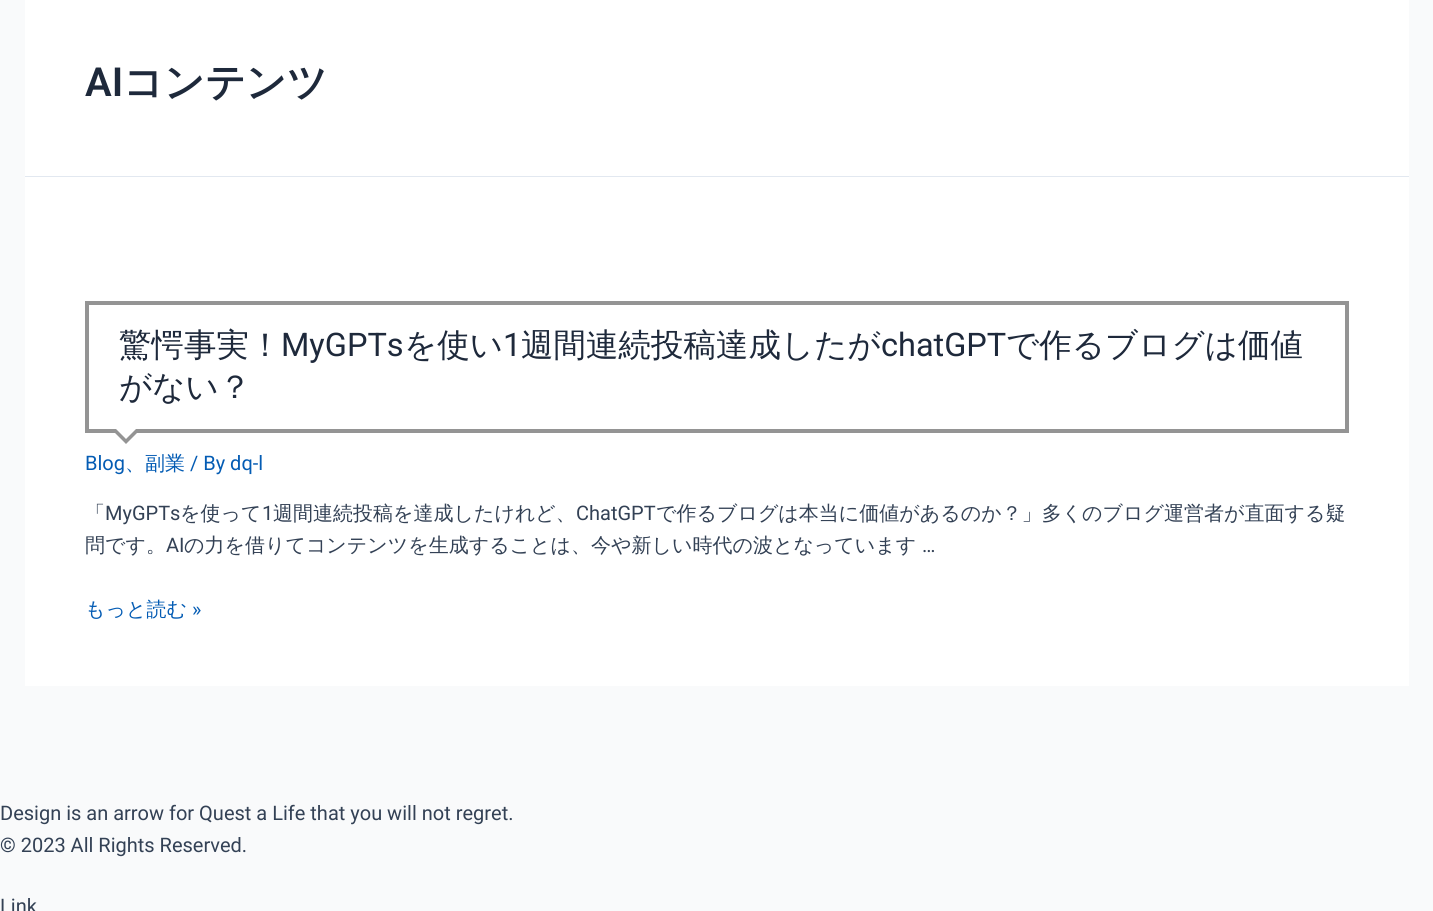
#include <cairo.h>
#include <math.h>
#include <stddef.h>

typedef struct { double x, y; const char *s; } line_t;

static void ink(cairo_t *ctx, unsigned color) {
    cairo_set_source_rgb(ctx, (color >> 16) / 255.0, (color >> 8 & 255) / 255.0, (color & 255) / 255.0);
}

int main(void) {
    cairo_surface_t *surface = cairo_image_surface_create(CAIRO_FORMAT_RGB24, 1433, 911);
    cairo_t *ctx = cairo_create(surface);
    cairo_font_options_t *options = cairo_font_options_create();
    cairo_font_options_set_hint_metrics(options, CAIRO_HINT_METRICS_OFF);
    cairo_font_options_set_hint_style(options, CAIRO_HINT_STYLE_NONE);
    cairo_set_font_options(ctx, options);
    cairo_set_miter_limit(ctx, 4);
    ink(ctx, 0xF9FAFB);
    cairo_paint(ctx);
    ink(ctx, 0xFFFFFF);
    cairo_rectangle(ctx, 25, 0, 1384, 686);
    cairo_fill(ctx);
    ink(ctx, 0xE2E8F0);
    cairo_rectangle(ctx, 25, 176, 1384, 1);
    cairo_fill(ctx);
    cairo_select_font_face(ctx, "Roboto SemiBold", CAIRO_FONT_SLANT_NORMAL, CAIRO_FONT_WEIGHT_NORMAL);
    cairo_set_font_size(ctx, 40);
    ink(ctx, 0x1E293B);
    cairo_move_to(ctx, 85, 96);
    cairo_show_text(ctx, "AI");
    cairo_select_font_face(ctx, "WenQuanYi Zen Hei", CAIRO_FONT_SLANT_NORMAL, CAIRO_FONT_WEIGHT_BOLD);
    cairo_move_to(ctx, 123, 96);
    cairo_show_text(ctx, "コンテンツ");
    cairo_rectangle(ctx, 87, 303, 1260, 128);
    ink(ctx, 0x949494);
    cairo_set_line_width(ctx, 4);
    cairo_stroke(ctx);
    cairo_select_font_face(ctx, "WenQuanYi Zen Hei Medium", CAIRO_FONT_SLANT_NORMAL, CAIRO_FONT_WEIGHT_NORMAL);
    cairo_set_font_size(ctx, 32.5);
    ink(ctx, 0x1E293B);
    cairo_move_to(ctx, 119, 356);
    cairo_show_text(ctx, "驚愕事実！");
    cairo_select_font_face(ctx, "Roboto", CAIRO_FONT_SLANT_NORMAL, CAIRO_FONT_WEIGHT_NORMAL);
    cairo_move_to(ctx, 281, 356);
    cairo_show_text(ctx, "MyGPTs");
    cairo_select_font_face(ctx, "WenQuanYi Zen Hei Medium", CAIRO_FONT_SLANT_NORMAL, CAIRO_FONT_WEIGHT_NORMAL);
    cairo_move_to(ctx, 404, 356);
    cairo_show_text(ctx, "を使い");
    cairo_select_font_face(ctx, "Roboto", CAIRO_FONT_SLANT_NORMAL, CAIRO_FONT_WEIGHT_NORMAL);
    cairo_move_to(ctx, 503, 356);
    cairo_show_text(ctx, "1");
    cairo_select_font_face(ctx, "WenQuanYi Zen Hei Medium", CAIRO_FONT_SLANT_NORMAL, CAIRO_FONT_WEIGHT_NORMAL);
    cairo_move_to(ctx, 521, 356);
    cairo_show_text(ctx, "週間連続投稿達成したが");
    cairo_select_font_face(ctx, "Roboto", CAIRO_FONT_SLANT_NORMAL, CAIRO_FONT_WEIGHT_NORMAL);
    cairo_move_to(ctx, 881, 356);
    cairo_show_text(ctx, "chatGPT");
    cairo_select_font_face(ctx, "WenQuanYi Zen Hei Medium", CAIRO_FONT_SLANT_NORMAL, CAIRO_FONT_WEIGHT_NORMAL);
    cairo_move_to(ctx, 1006, 356);
    cairo_show_text(ctx, "で作るブログは価値");
    cairo_move_to(ctx, 119, 398);
    cairo_show_text(ctx, "がない？");
    ink(ctx, 0x949494);
    cairo_new_path(ctx);
    cairo_move_to(ctx, 111, 429);
    cairo_line_to(ctx, 141, 429);
    cairo_line_to(ctx, 126, 444);
    cairo_close_path(ctx);
    cairo_fill(ctx);
    ink(ctx, 0xFFFFFF);
    cairo_new_path(ctx);
    cairo_move_to(ctx, 116, 429);
    cairo_line_to(ctx, 136, 429);
    cairo_line_to(ctx, 126, 439);
    cairo_close_path(ctx);
    cairo_fill(ctx);
    cairo_select_font_face(ctx, "Roboto", CAIRO_FONT_SLANT_NORMAL, CAIRO_FONT_WEIGHT_NORMAL);
    cairo_set_font_size(ctx, 20);
    ink(ctx, 0x045CB4);
    cairo_move_to(ctx, 85, 470);
    cairo_show_text(ctx, "Blog");
    cairo_select_font_face(ctx, "WenQuanYi Zen Hei Medium", CAIRO_FONT_SLANT_NORMAL, CAIRO_FONT_WEIGHT_NORMAL);
    cairo_move_to(ctx, 125, 470);
    cairo_show_text(ctx, "、副業");
    cairo_select_font_face(ctx, "Roboto", CAIRO_FONT_SLANT_NORMAL, CAIRO_FONT_WEIGHT_NORMAL);
    cairo_move_to(ctx, 190, 470);
    cairo_show_text(ctx, "/ By dq-l");
    cairo_select_font_face(ctx, "WenQuanYi Zen Hei Medium", CAIRO_FONT_SLANT_NORMAL, CAIRO_FONT_WEIGHT_NORMAL);
    ink(ctx, 0x334155);
    cairo_move_to(ctx, 85, 520);
    cairo_show_text(ctx, "「");
    cairo_select_font_face(ctx, "Roboto", CAIRO_FONT_SLANT_NORMAL, CAIRO_FONT_WEIGHT_NORMAL);
    cairo_move_to(ctx, 105, 520);
    cairo_show_text(ctx, "MyGPTs");
    cairo_select_font_face(ctx, "WenQuanYi Zen Hei Medium", CAIRO_FONT_SLANT_NORMAL, CAIRO_FONT_WEIGHT_NORMAL);
    cairo_move_to(ctx, 180, 520);
    cairo_show_text(ctx, "を使って");
    cairo_select_font_face(ctx, "Roboto", CAIRO_FONT_SLANT_NORMAL, CAIRO_FONT_WEIGHT_NORMAL);
    cairo_move_to(ctx, 262, 520);
    cairo_show_text(ctx, "1");
    cairo_select_font_face(ctx, "WenQuanYi Zen Hei Medium", CAIRO_FONT_SLANT_NORMAL, CAIRO_FONT_WEIGHT_NORMAL);
    cairo_move_to(ctx, 273, 520);
    cairo_show_text(ctx, "週間連続投稿を達成したけれど、");
    cairo_select_font_face(ctx, "Roboto", CAIRO_FONT_SLANT_NORMAL, CAIRO_FONT_WEIGHT_NORMAL);
    cairo_move_to(ctx, 576, 520);
    cairo_show_text(ctx, "ChatGPT");
    cairo_select_font_face(ctx, "WenQuanYi Zen Hei Medium", CAIRO_FONT_SLANT_NORMAL, CAIRO_FONT_WEIGHT_NORMAL);
    cairo_move_to(ctx, 656, 520);
    cairo_show_text(ctx, "で作るブログは本当に価値があるのか？」多くのブログ運営者が直面する疑");
    cairo_move_to(ctx, 85, 552);
    cairo_show_text(ctx, "問です。");
    cairo_select_font_face(ctx, "Roboto", CAIRO_FONT_SLANT_NORMAL, CAIRO_FONT_WEIGHT_NORMAL);
    cairo_move_to(ctx, 166, 552);
    cairo_show_text(ctx, "AI");
    cairo_select_font_face(ctx, "WenQuanYi Zen Hei Medium", CAIRO_FONT_SLANT_NORMAL, CAIRO_FONT_WEIGHT_NORMAL);
    cairo_move_to(ctx, 184, 552);
    cairo_show_text(ctx, "の力を借りてコンテンツを生成することは、今や新しい時代の波となっています");
    cairo_select_font_face(ctx, "Roboto", CAIRO_FONT_SLANT_NORMAL, CAIRO_FONT_WEIGHT_NORMAL);
    cairo_move_to(ctx, 922, 552);
    cairo_show_text(ctx, "…");
    cairo_select_font_face(ctx, "WenQuanYi Zen Hei Medium", CAIRO_FONT_SLANT_NORMAL, CAIRO_FONT_WEIGHT_NORMAL);
    ink(ctx, 0x045CB4);
    cairo_move_to(ctx, 85, 616);
    cairo_show_text(ctx, "もっと読む");
    cairo_select_font_face(ctx, "Roboto", CAIRO_FONT_SLANT_NORMAL, CAIRO_FONT_WEIGHT_NORMAL);
    cairo_move_to(ctx, 192, 616);
    cairo_show_text(ctx, "»");
    ink(ctx, 0x334155);
    {
        static const line_t items[] = {
            {0, 820, "Design is an arrow for Quest a Life that you will not regret."},
            {0, 852, "© 2023 All Rights Reserved."},
            {0, 913, "Link"},
        };
        for (size_t i = 0; i < sizeof items / sizeof *items; i++) {
            cairo_move_to(ctx, items[i].x, items[i].y);
            cairo_show_text(ctx, items[i].s);
        }
    }
    cairo_surface_write_to_png(surface, "image.png");
    cairo_font_options_destroy(options);
    cairo_destroy(ctx);
    cairo_surface_destroy(surface);
    return 0;
}
